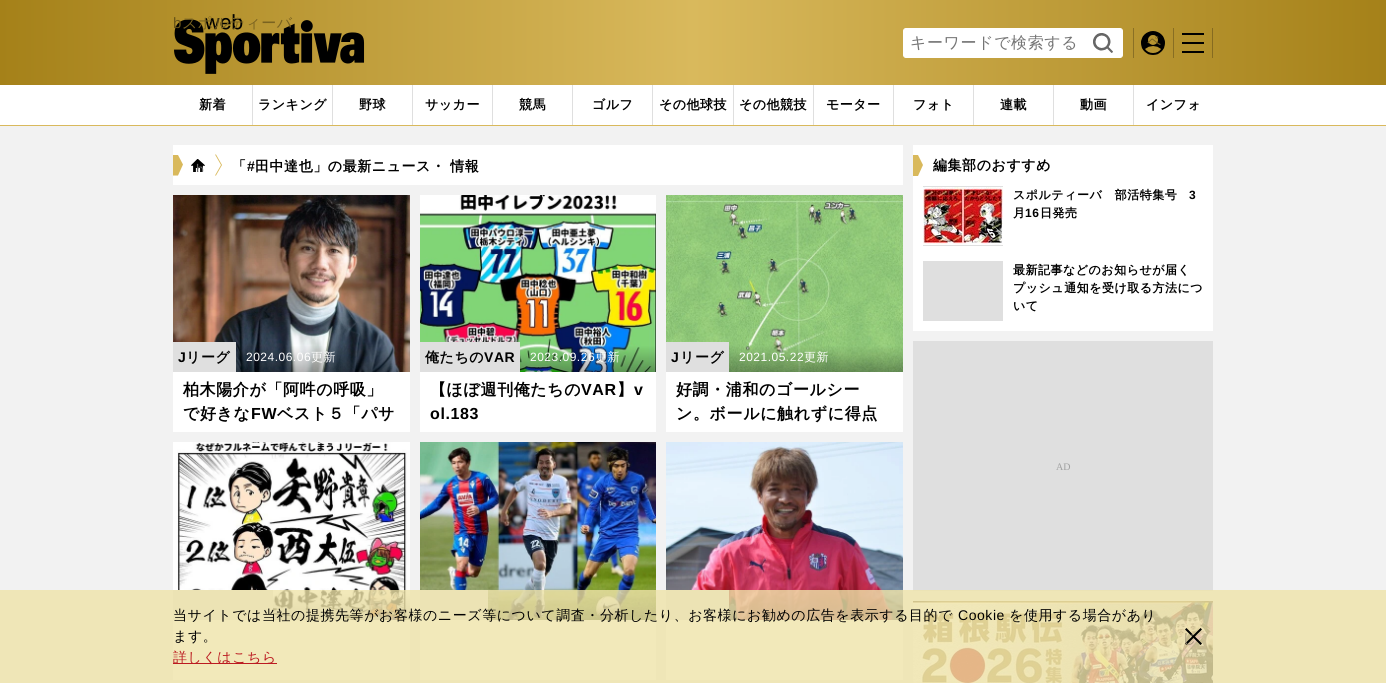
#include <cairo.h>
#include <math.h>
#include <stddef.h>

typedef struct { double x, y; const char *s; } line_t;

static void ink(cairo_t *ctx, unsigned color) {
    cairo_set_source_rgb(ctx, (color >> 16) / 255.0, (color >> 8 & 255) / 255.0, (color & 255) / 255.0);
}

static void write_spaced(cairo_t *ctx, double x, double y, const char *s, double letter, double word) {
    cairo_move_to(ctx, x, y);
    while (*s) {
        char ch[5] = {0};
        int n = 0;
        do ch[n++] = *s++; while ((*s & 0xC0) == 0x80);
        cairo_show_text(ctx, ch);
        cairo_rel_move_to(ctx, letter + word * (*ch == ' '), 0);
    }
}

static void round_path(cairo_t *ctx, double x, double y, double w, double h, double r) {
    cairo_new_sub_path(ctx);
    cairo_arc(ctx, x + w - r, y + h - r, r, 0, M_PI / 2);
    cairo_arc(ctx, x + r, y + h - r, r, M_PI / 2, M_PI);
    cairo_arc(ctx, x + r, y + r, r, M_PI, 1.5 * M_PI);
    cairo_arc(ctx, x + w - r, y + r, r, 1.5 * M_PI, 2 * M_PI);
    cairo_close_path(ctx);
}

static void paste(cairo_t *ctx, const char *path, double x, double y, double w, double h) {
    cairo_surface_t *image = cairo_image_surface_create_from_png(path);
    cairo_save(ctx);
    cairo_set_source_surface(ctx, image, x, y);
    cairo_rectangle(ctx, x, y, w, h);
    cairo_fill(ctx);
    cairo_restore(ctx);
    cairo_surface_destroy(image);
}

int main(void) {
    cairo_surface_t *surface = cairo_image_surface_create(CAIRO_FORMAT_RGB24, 1386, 683);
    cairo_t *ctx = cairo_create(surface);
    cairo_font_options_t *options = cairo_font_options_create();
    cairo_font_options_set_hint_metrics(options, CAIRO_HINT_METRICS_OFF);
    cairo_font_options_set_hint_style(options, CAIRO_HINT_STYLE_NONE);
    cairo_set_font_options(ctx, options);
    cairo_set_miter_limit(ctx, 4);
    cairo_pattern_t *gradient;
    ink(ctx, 0xF2F2F2);
    cairo_paint(ctx);
    ink(ctx, 0xFFFFFF);
    cairo_rectangle(ctx, 0, 85, 1386, 40);
    cairo_fill(ctx);
    gradient = cairo_pattern_create_linear(0, 43, 1386, 42);
    cairo_pattern_add_color_stop_rgba(gradient, 0, 0.647, 0.506, 0.098, 1);
    cairo_pattern_add_color_stop_rgba(gradient, 0.5, 0.851, 0.725, 0.361, 1);
    cairo_pattern_add_color_stop_rgba(gradient, 1, 0.647, 0.506, 0.098, 1);
    cairo_set_source(ctx, gradient);
    cairo_pattern_destroy(gradient);
    cairo_rectangle(ctx, 0, 0, 1386, 85);
    cairo_fill(ctx);
    paste(ctx, "media/1.png", 174, 14, 191, 60);
    cairo_select_font_face(ctx, "Liberation Sans", CAIRO_FONT_SLANT_NORMAL, CAIRO_FONT_WEIGHT_NORMAL);
    cairo_set_font_size(ctx, 15);
    ink(ctx, 0x6A5519);
    write_spaced(ctx, 173, 28, "b", 0.5, 0);
    cairo_select_font_face(ctx, "WenQuanYi Zen Hei Medium", CAIRO_FONT_SLANT_NORMAL, CAIRO_FONT_WEIGHT_NORMAL);
    ink(ctx, 0x7A6320);
    write_spaced(ctx, 182, 28, "スポルティーバ", 0.5, 0);
    ink(ctx, 0xFFFFFF);
    round_path(ctx, 903.5, 28.5, 219, 29, 2.5);
    cairo_fill_preserve(ctx);
    cairo_set_line_width(ctx, 1);
    cairo_stroke(ctx);
    cairo_set_font_size(ctx, 16);
    ink(ctx, 0x757575);
    write_spaced(ctx, 910, 48, "キーワードで検索する", 0.6, 0);
    paste(ctx, "media/2.png", 1093, 33, 20, 20);
    ink(ctx, 0x8A7025);
    cairo_rectangle(ctx, 1133, 28, 1, 30);
    cairo_fill(ctx);
    paste(ctx, "media/3.png", 1141, 31, 24, 24);
    cairo_set_font_size(ctx, 14);
    ink(ctx, 0x7A6320);
    write_spaced(ctx, 1147, 46, "ペ", 0.55, 0);
    ink(ctx, 0x886E23);
    cairo_rectangle(ctx, 1173, 28, 1, 30);
    cairo_fill(ctx);
    paste(ctx, "media/4.png", 1182, 33, 22, 20);
    ink(ctx, 0x866B20);
    cairo_rectangle(ctx, 1212, 28, 1, 30);
    cairo_fill(ctx);
    cairo_select_font_face(ctx, "WenQuanYi Zen Hei", CAIRO_FONT_SLANT_NORMAL, CAIRO_FONT_WEIGHT_BOLD);
    cairo_set_font_size(ctx, 13);
    ink(ctx, 0x000000);
    write_spaced(ctx, 199, 109, "新着", 0.5, 0);
    ink(ctx, 0xDFDFDF);
    cairo_rectangle(ctx, 252, 85, 1, 40);
    cairo_fill(ctx);
    ink(ctx, 0x000000);
    write_spaced(ctx, 258, 109, "ランキング", 0.5, 0);
    ink(ctx, 0xDFDFDF);
    cairo_rectangle(ctx, 332, 85, 1, 40);
    cairo_fill(ctx);
    ink(ctx, 0x000000);
    write_spaced(ctx, 359, 109, "野球", 0.5, 0);
    ink(ctx, 0xDFDFDF);
    cairo_rectangle(ctx, 412, 85, 1, 40);
    cairo_fill(ctx);
    ink(ctx, 0x000000);
    write_spaced(ctx, 425, 109, "サッカー", 0.5, 0);
    ink(ctx, 0xDFDFDF);
    cairo_rectangle(ctx, 492, 85, 1, 40);
    cairo_fill(ctx);
    ink(ctx, 0x000000);
    write_spaced(ctx, 519, 109, "競馬", 0.5, 0);
    ink(ctx, 0xDFDFDF);
    cairo_rectangle(ctx, 572, 85, 1, 40);
    cairo_fill(ctx);
    ink(ctx, 0x000000);
    write_spaced(ctx, 592, 109, "ゴルフ", 0.5, 0);
    ink(ctx, 0xDFDFDF);
    cairo_rectangle(ctx, 652, 85, 1, 40);
    cairo_fill(ctx);
    ink(ctx, 0x000000);
    write_spaced(ctx, 659, 109, "その他球技", 0.5, 0);
    ink(ctx, 0xDFDFDF);
    cairo_rectangle(ctx, 733, 85, 1, 40);
    cairo_fill(ctx);
    ink(ctx, 0x000000);
    write_spaced(ctx, 739, 109, "その他競技", 0.5, 0);
    ink(ctx, 0xDFDFDF);
    cairo_rectangle(ctx, 813, 85, 1, 40);
    cairo_fill(ctx);
    ink(ctx, 0x000000);
    write_spaced(ctx, 826, 109, "モーター", 0.5, 0);
    ink(ctx, 0xDFDFDF);
    cairo_rectangle(ctx, 893, 85, 1, 40);
    cairo_fill(ctx);
    ink(ctx, 0x000000);
    write_spaced(ctx, 913, 109, "フォト", 0.5, 0);
    ink(ctx, 0xDFDFDF);
    cairo_rectangle(ctx, 973, 85, 1, 40);
    cairo_fill(ctx);
    ink(ctx, 0x000000);
    write_spaced(ctx, 1000, 109, "連載", 0.5, 0);
    ink(ctx, 0xDFDFDF);
    cairo_rectangle(ctx, 1053, 85, 1, 40);
    cairo_fill(ctx);
    ink(ctx, 0x000000);
    write_spaced(ctx, 1080, 109, "動画", 0.5, 0);
    ink(ctx, 0xDFDFDF);
    cairo_rectangle(ctx, 1133, 85, 1, 40);
    cairo_fill(ctx);
    ink(ctx, 0x000000);
    write_spaced(ctx, 1146, 109, "インフォ", 0.5, 0);
    ink(ctx, 0xD9B95C);
    cairo_rectangle(ctx, 0, 125, 1386, 1);
    cairo_fill(ctx);
    ink(ctx, 0xFFFFFF);
    cairo_rectangle(ctx, 173, 620, 237, 60);
    cairo_fill(ctx);
    paste(ctx, "media/10.png", 173, 442, 237, 178);
    ink(ctx, 0xDFDFDF);
    cairo_rectangle(ctx, 173, 590, 100, 30);
    cairo_fill(ctx);
    ink(ctx, 0xFFFFFF);
    cairo_rectangle(ctx, 420, 620, 236, 60);
    cairo_fill(ctx);
    paste(ctx, "media/11.png", 420, 442, 236, 178);
    ink(ctx, 0xDFDFDF);
    cairo_rectangle(ctx, 420, 590, 68, 30);
    cairo_fill(ctx);
    ink(ctx, 0xFFFFFF);
    cairo_rectangle(ctx, 666, 620, 237, 60);
    cairo_fill(ctx);
    paste(ctx, "media/12.png", 666, 442, 237, 178);
    ink(ctx, 0xDFDFDF);
    cairo_rectangle(ctx, 666, 590, 63, 30);
    cairo_fill(ctx);
    cairo_rectangle(ctx, 913, 341, 300, 250);
    cairo_fill(ctx);
    paste(ctx, "media/14.png", 913, 601, 300, 82);
    cairo_set_source_rgba(ctx, 0.937, 0.89, 0.663, 0.8);
    cairo_rectangle(ctx, 0, 590, 1386, 93);
    cairo_fill(ctx);
    cairo_select_font_face(ctx, "WenQuanYi Zen Hei Medium", CAIRO_FONT_SLANT_NORMAL, CAIRO_FONT_WEIGHT_NORMAL);
    cairo_set_font_size(ctx, 14);
    ink(ctx, 0x000000);
    write_spaced(ctx, 173, 620, "当サイトでは当社の提携先等がお客様のニーズ等について調査・分析したり、お客様にお勧めの広告を表⽰する⽬的で", 0.55, 0);
    cairo_select_font_face(ctx, "Liberation Sans", CAIRO_FONT_SLANT_NORMAL, CAIRO_FONT_WEIGHT_NORMAL);
    write_spaced(ctx, 958, 620, "Cookie", 0.55, 0);
    cairo_select_font_face(ctx, "WenQuanYi Zen Hei Medium", CAIRO_FONT_SLANT_NORMAL, CAIRO_FONT_WEIGHT_NORMAL);
    write_spaced(ctx, 1009, 620, "を使⽤する場合があり", 0.55, 0);
    write_spaced(ctx, 173, 641, "ます。", 0.55, 0);
    ink(ctx, 0xBB1B21);
    cairo_rectangle(ctx, 173, 663, 104, 1);
    cairo_fill(ctx);
    write_spaced(ctx, 173, 662, "詳しくはこちら", 0.55, 0);
    paste(ctx, "media/5.png", 1185, 628, 17, 17);
    ink(ctx, 0xA89B7E);
    write_spaced(ctx, 1182, 643, "じ", 0.55, 0);
    ink(ctx, 0xFFFFFF);
    cairo_rectangle(ctx, 173, 145, 730, 40);
    cairo_fill(ctx);
    ink(ctx, 0xD9B95C);
    cairo_new_path(ctx);
    cairo_move_to(ctx, 173, 155);
    cairo_line_to(ctx, 173, 175.5);
    cairo_line_to(ctx, 178, 175.5);
    cairo_line_to(ctx, 183, 164.5);
    cairo_line_to(ctx, 178, 155);
    cairo_close_path(ctx);
    cairo_fill(ctx);
    paste(ctx, "media/6.png", 191, 159, 14, 13);
    cairo_save(ctx);
    cairo_rectangle(ctx, 191, 159, 14, 13);
    cairo_clip(ctx);
    cairo_select_font_face(ctx, "Liberation Sans", CAIRO_FONT_SLANT_NORMAL, CAIRO_FONT_WEIGHT_NORMAL);
    ink(ctx, 0x676767);
    write_spaced(ctx, 196, 174, "b", 0.55, 0);
    cairo_restore(ctx);
    cairo_new_path(ctx);
    cairo_move_to(ctx, 215, 154.5);
    cairo_line_to(ctx, 216, 154.5);
    cairo_line_to(ctx, 222, 165);
    cairo_line_to(ctx, 221, 165);
    cairo_close_path(ctx);
    cairo_fill(ctx);
    cairo_select_font_face(ctx, "WenQuanYi Zen Hei", CAIRO_FONT_SLANT_NORMAL, CAIRO_FONT_WEIGHT_BOLD);
    ink(ctx, 0x000000);
    write_spaced(ctx, 232, 171, "「", 0.55, 0);
    cairo_select_font_face(ctx, "Liberation Sans", CAIRO_FONT_SLANT_NORMAL, CAIRO_FONT_WEIGHT_BOLD);
    write_spaced(ctx, 247, 171, "#", 0.55, 0);
    cairo_select_font_face(ctx, "WenQuanYi Zen Hei", CAIRO_FONT_SLANT_NORMAL, CAIRO_FONT_WEIGHT_BOLD);
    write_spaced(ctx, 255, 171, "田中達也」の最新ニュース・ 情報", 0.55, 0);
    ink(ctx, 0xD9B95C);
    cairo_new_path(ctx);
    cairo_move_to(ctx, 221, 165);
    cairo_line_to(ctx, 222, 165);
    cairo_line_to(ctx, 216, 175.5);
    cairo_line_to(ctx, 215, 175.5);
    cairo_close_path(ctx);
    cairo_fill(ctx);
    ink(ctx, 0xFFFFFF);
    cairo_rectangle(ctx, 173, 372, 237, 60);
    cairo_fill(ctx);
    paste(ctx, "media/7.png", 173, 195, 237, 177);
    ink(ctx, 0xDFDFDF);
    cairo_rectangle(ctx, 173, 342, 63, 30);
    cairo_fill(ctx);
    cairo_select_font_face(ctx, "Liberation Sans", CAIRO_FONT_SLANT_NORMAL, CAIRO_FONT_WEIGHT_BOLD);
    ink(ctx, 0x000000);
    write_spaced(ctx, 178, 362, "J", 0.55, 0);
    cairo_select_font_face(ctx, "WenQuanYi Zen Hei", CAIRO_FONT_SLANT_NORMAL, CAIRO_FONT_WEIGHT_BOLD);
    write_spaced(ctx, 186, 362, "リーグ", 0.55, 0);
    cairo_select_font_face(ctx, "Liberation Sans", CAIRO_FONT_SLANT_NORMAL, CAIRO_FONT_WEIGHT_NORMAL);
    cairo_set_font_size(ctx, 12);
    ink(ctx, 0xFFFFFF);
    write_spaced(ctx, 246, 361, "2024.06.06", 0.5, 0);
    cairo_select_font_face(ctx, "WenQuanYi Zen Hei Medium", CAIRO_FONT_SLANT_NORMAL, CAIRO_FONT_WEIGHT_NORMAL);
    write_spaced(ctx, 311, 361, "更新", 0.5, 0);
    cairo_select_font_face(ctx, "WenQuanYi Zen Hei", CAIRO_FONT_SLANT_NORMAL, CAIRO_FONT_WEIGHT_BOLD);
    cairo_set_font_size(ctx, 16);
    ink(ctx, 0x000000);
    write_spaced(ctx, 183, 395, "柏木陽介が「阿吽の呼吸」", 0.6, 0);
    write_spaced(ctx, 183, 419, "で好きな", 0.6, 0);
    cairo_select_font_face(ctx, "Liberation Sans", CAIRO_FONT_SLANT_NORMAL, CAIRO_FONT_WEIGHT_BOLD);
    write_spaced(ctx, 251, 419, "FW", 0.6, 0);
    cairo_select_font_face(ctx, "WenQuanYi Zen Hei", CAIRO_FONT_SLANT_NORMAL, CAIRO_FONT_WEIGHT_BOLD);
    write_spaced(ctx, 277, 419, "ベスト５「パサ", 0.6, 0);
    ink(ctx, 0xFFFFFF);
    cairo_rectangle(ctx, 420, 372, 236, 60);
    cairo_fill(ctx);
    paste(ctx, "media/8.png", 420, 195, 236, 177);
    ink(ctx, 0xDFDFDF);
    cairo_rectangle(ctx, 420, 342, 100, 30);
    cairo_fill(ctx);
    cairo_set_font_size(ctx, 14);
    ink(ctx, 0x000000);
    write_spaced(ctx, 425, 362, "俺たちの", 0.55, 0);
    cairo_select_font_face(ctx, "Liberation Sans", CAIRO_FONT_SLANT_NORMAL, CAIRO_FONT_WEIGHT_BOLD);
    write_spaced(ctx, 484, 362, "VAR", 0.55, 0);
    cairo_select_font_face(ctx, "Liberation Sans", CAIRO_FONT_SLANT_NORMAL, CAIRO_FONT_WEIGHT_NORMAL);
    cairo_set_font_size(ctx, 12);
    ink(ctx, 0xFFFFFF);
    write_spaced(ctx, 530, 361, "2023.09.26", 0.5, 0);
    cairo_select_font_face(ctx, "WenQuanYi Zen Hei Medium", CAIRO_FONT_SLANT_NORMAL, CAIRO_FONT_WEIGHT_NORMAL);
    write_spaced(ctx, 595, 361, "更新", 0.5, 0);
    cairo_select_font_face(ctx, "WenQuanYi Zen Hei", CAIRO_FONT_SLANT_NORMAL, CAIRO_FONT_WEIGHT_BOLD);
    cairo_set_font_size(ctx, 16);
    ink(ctx, 0x000000);
    write_spaced(ctx, 430, 395, "【ほぼ週刊俺たちの", 0.6, 0);
    cairo_select_font_face(ctx, "Liberation Sans", CAIRO_FONT_SLANT_NORMAL, CAIRO_FONT_WEIGHT_BOLD);
    write_spaced(ctx, 581, 395, "VAR", 0.6, 0);
    cairo_select_font_face(ctx, "WenQuanYi Zen Hei", CAIRO_FONT_SLANT_NORMAL, CAIRO_FONT_WEIGHT_BOLD);
    write_spaced(ctx, 617, 395, "】", 0.6, 0);
    cairo_select_font_face(ctx, "Liberation Sans", CAIRO_FONT_SLANT_NORMAL, CAIRO_FONT_WEIGHT_BOLD);
    write_spaced(ctx, 634, 395, "v", 0.6, 0);
    write_spaced(ctx, 430, 419, "ol.183", 0.6, 0);
    ink(ctx, 0xFFFFFF);
    cairo_rectangle(ctx, 666, 372, 237, 60);
    cairo_fill(ctx);
    paste(ctx, "media/9.png", 666, 195, 237, 177);
    ink(ctx, 0xDFDFDF);
    cairo_rectangle(ctx, 666, 342, 63, 30);
    cairo_fill(ctx);
    cairo_set_font_size(ctx, 14);
    ink(ctx, 0x000000);
    write_spaced(ctx, 671, 362, "J", 0.55, 0);
    cairo_select_font_face(ctx, "WenQuanYi Zen Hei", CAIRO_FONT_SLANT_NORMAL, CAIRO_FONT_WEIGHT_BOLD);
    write_spaced(ctx, 680, 362, "リーグ", 0.55, 0);
    cairo_select_font_face(ctx, "Liberation Sans", CAIRO_FONT_SLANT_NORMAL, CAIRO_FONT_WEIGHT_NORMAL);
    cairo_set_font_size(ctx, 12);
    ink(ctx, 0xFFFFFF);
    write_spaced(ctx, 739, 361, "2021.05.22", 0.5, 0);
    cairo_select_font_face(ctx, "WenQuanYi Zen Hei Medium", CAIRO_FONT_SLANT_NORMAL, CAIRO_FONT_WEIGHT_NORMAL);
    write_spaced(ctx, 804, 361, "更新", 0.5, 0);
    cairo_select_font_face(ctx, "WenQuanYi Zen Hei", CAIRO_FONT_SLANT_NORMAL, CAIRO_FONT_WEIGHT_BOLD);
    cairo_set_font_size(ctx, 16);
    ink(ctx, 0x000000);
    write_spaced(ctx, 676, 395, "好調・浦和のゴールシー", 0.6, 0);
    write_spaced(ctx, 676, 419, "ン。ボールに触れずに得点", 0.6, 0);
    ink(ctx, 0xFFFFFF);
    cairo_rectangle(ctx, 913, 145, 300, 186);
    cairo_fill(ctx);
    ink(ctx, 0xD9B95C);
    cairo_new_path(ctx);
    cairo_move_to(ctx, 913, 155);
    cairo_line_to(ctx, 913, 176);
    cairo_line_to(ctx, 918, 176);
    cairo_line_to(ctx, 923, 165);
    cairo_line_to(ctx, 918, 155);
    cairo_close_path(ctx);
    cairo_fill(ctx);
    cairo_set_font_size(ctx, 14);
    ink(ctx, 0x000000);
    write_spaced(ctx, 933, 170, "編集部のおすすめ", 0.55, 0);
    ink(ctx, 0xDFDFDF);
    cairo_rectangle(ctx, 923, 186, 80, 60);
    cairo_fill(ctx);
    paste(ctx, "media/13.png", 923, 187, 80, 58);
    cairo_set_font_size(ctx, 12);
    ink(ctx, 0x000000);
    write_spaced(ctx, 1013, 199, "スポルティーバ　部活特集号", 0.5, 0);
    cairo_select_font_face(ctx, "Liberation Sans", CAIRO_FONT_SLANT_NORMAL, CAIRO_FONT_WEIGHT_BOLD);
    write_spaced(ctx, 1189, 199, "3", 0.5, 0);
    cairo_select_font_face(ctx, "WenQuanYi Zen Hei", CAIRO_FONT_SLANT_NORMAL, CAIRO_FONT_WEIGHT_BOLD);
    write_spaced(ctx, 1013, 217, "月", 0.5, 0);
    cairo_select_font_face(ctx, "Liberation Sans", CAIRO_FONT_SLANT_NORMAL, CAIRO_FONT_WEIGHT_BOLD);
    write_spaced(ctx, 1025, 217, "16", 0.5, 0);
    cairo_select_font_face(ctx, "WenQuanYi Zen Hei", CAIRO_FONT_SLANT_NORMAL, CAIRO_FONT_WEIGHT_BOLD);
    write_spaced(ctx, 1040, 217, "日発売", 0.5, 0);
    ink(ctx, 0xDFDFDF);
    cairo_rectangle(ctx, 923, 261, 80, 60);
    cairo_fill(ctx);
    ink(ctx, 0x000000);
    {
        static const line_t items[] = {
            {1013, 274, "最新記事などのお知らせが届く"},
            {1013, 292, "プッシュ通知を受け取る方法につ"},
            {1013, 310, "いて"},
        };
        for (size_t i = 0; i < sizeof items / sizeof *items; i++) {
            write_spaced(ctx, items[i].x, items[i].y, items[i].s, 0.5, 0);
        }
    }
    cairo_select_font_face(ctx, "Liberation Serif", CAIRO_FONT_SLANT_NORMAL, CAIRO_FONT_WEIGHT_NORMAL);
    cairo_set_font_size(ctx, 10);
    ink(ctx, 0x9FA0A0);
    cairo_move_to(ctx, 1056, 470);
    cairo_show_text(ctx, "AD");
    cairo_surface_write_to_png(surface, "image.png");
    cairo_font_options_destroy(options);
    cairo_destroy(ctx);
    cairo_surface_destroy(surface);
    return 0;
}
